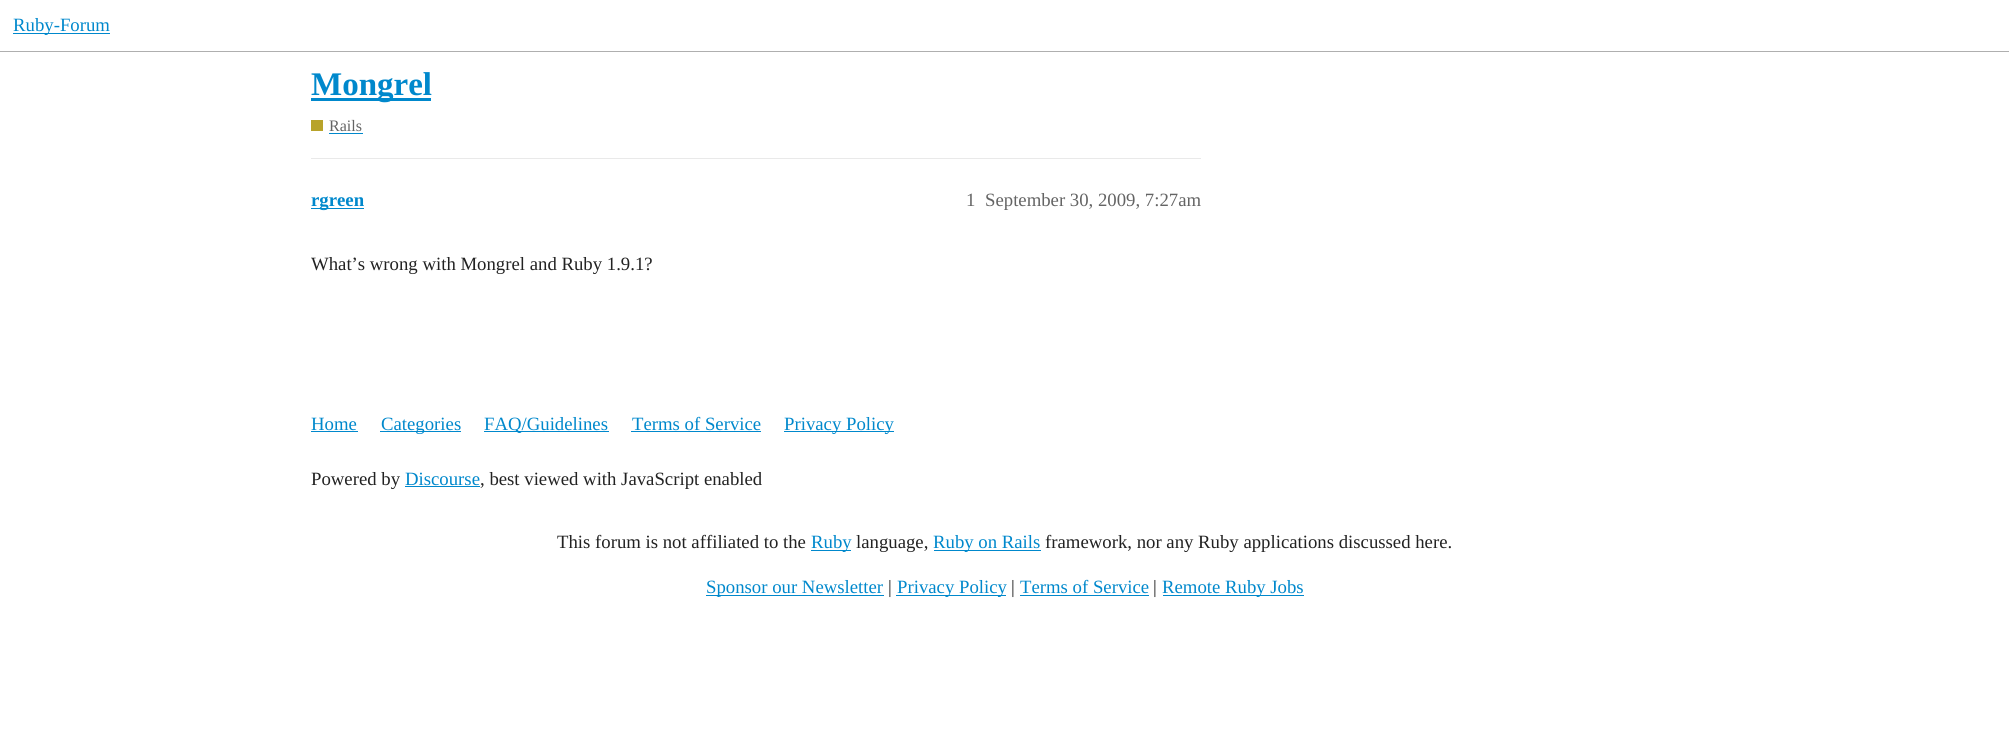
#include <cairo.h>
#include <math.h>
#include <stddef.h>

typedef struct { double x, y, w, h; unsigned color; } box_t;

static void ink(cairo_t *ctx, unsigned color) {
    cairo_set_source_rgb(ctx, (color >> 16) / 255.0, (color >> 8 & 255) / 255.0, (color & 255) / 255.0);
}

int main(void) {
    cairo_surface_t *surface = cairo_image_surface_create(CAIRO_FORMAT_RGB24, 2009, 745);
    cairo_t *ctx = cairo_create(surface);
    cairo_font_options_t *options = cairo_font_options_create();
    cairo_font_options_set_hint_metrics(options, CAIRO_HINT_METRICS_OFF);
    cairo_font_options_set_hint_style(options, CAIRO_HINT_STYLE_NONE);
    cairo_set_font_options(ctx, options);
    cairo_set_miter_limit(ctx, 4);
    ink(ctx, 0xFFFFFF);
    cairo_paint(ctx);
    ink(ctx, 0xAFAFAF);
    cairo_rectangle(ctx, 0, 51, 2009, 1);
    cairo_fill(ctx);
    ink(ctx, 0x0088CC);
    cairo_rectangle(ctx, 13, 33, 97, 1);
    cairo_fill(ctx);
    cairo_select_font_face(ctx, "Liberation Serif", CAIRO_FONT_SLANT_NORMAL, CAIRO_FONT_WEIGHT_NORMAL);
    cairo_set_font_size(ctx, 18.75);
    cairo_move_to(ctx, 13, 31);
    cairo_show_text(ctx, "Ruby-Forum");
    cairo_rectangle(ctx, 311, 98, 120, 3);
    cairo_fill(ctx);
    cairo_select_font_face(ctx, "Liberation Serif", CAIRO_FONT_SLANT_NORMAL, CAIRO_FONT_WEIGHT_BOLD);
    cairo_set_font_size(ctx, 33);
    cairo_move_to(ctx, 311, 95);
    cairo_show_text(ctx, "Mongrel");
    ink(ctx, 0xB8A32A);
    cairo_rectangle(ctx, 311, 120, 12, 11);
    cairo_fill(ctx);
    cairo_select_font_face(ctx, "Liberation Serif", CAIRO_FONT_SLANT_NORMAL, CAIRO_FONT_WEIGHT_NORMAL);
    cairo_set_font_size(ctx, 16);
    ink(ctx, 0x646464);
    cairo_move_to(ctx, 329, 131);
    cairo_show_text(ctx, "Rails");
    {
        static const box_t items[] = {
            {329, 133, 34, 1, 0x0088CC},
            {311, 158, 890, 1, 0xE9E9E9},
            {311, 208, 53, 1, 0x0088CC},
        };
        for (size_t i = 0; i < sizeof items / sizeof *items; i++) {
            ink(ctx, items[i].color);
            cairo_rectangle(ctx, items[i].x, items[i].y, items[i].w, items[i].h);
            cairo_fill(ctx);
        }
    }
    cairo_select_font_face(ctx, "Liberation Serif", CAIRO_FONT_SLANT_NORMAL, CAIRO_FONT_WEIGHT_BOLD);
    cairo_set_font_size(ctx, 18.75);
    cairo_move_to(ctx, 311, 206);
    cairo_show_text(ctx, "rgreen");
    cairo_select_font_face(ctx, "Liberation Serif", CAIRO_FONT_SLANT_NORMAL, CAIRO_FONT_WEIGHT_NORMAL);
    ink(ctx, 0x646464);
    cairo_move_to(ctx, 966, 206);
    cairo_show_text(ctx, "1");
    cairo_move_to(ctx, 985, 206);
    cairo_show_text(ctx, "September 30, 2009, 7:27am");
    ink(ctx, 0x222222);
    cairo_move_to(ctx, 311, 270);
    cairo_show_text(ctx, "What’s wrong with Mongrel and Ruby 1.9.1?");
    ink(ctx, 0x0088CC);
    cairo_move_to(ctx, 311, 430);
    cairo_show_text(ctx, "Home");
    cairo_rectangle(ctx, 311, 431, 47, 1);
    cairo_fill(ctx);
    cairo_rectangle(ctx, 380, 431, 81, 1);
    cairo_fill(ctx);
    cairo_move_to(ctx, 381, 430);
    cairo_show_text(ctx, "Categories");
    cairo_rectangle(ctx, 484, 431, 125, 1);
    cairo_fill(ctx);
    cairo_move_to(ctx, 484, 430);
    cairo_show_text(ctx, "FAQ/Guidelines");
    cairo_move_to(ctx, 632, 430);
    cairo_show_text(ctx, "Terms of Service");
    cairo_rectangle(ctx, 631, 431, 130, 1);
    cairo_fill(ctx);
    cairo_rectangle(ctx, 784, 431, 110, 1);
    cairo_fill(ctx);
    cairo_move_to(ctx, 784, 430);
    cairo_show_text(ctx, "Privacy Policy");
    ink(ctx, 0x222222);
    cairo_move_to(ctx, 311, 485);
    cairo_show_text(ctx, "Powered by");
    ink(ctx, 0x0088CC);
    cairo_move_to(ctx, 405, 485);
    cairo_show_text(ctx, "Discourse");
    cairo_rectangle(ctx, 405, 486, 75, 1);
    cairo_fill(ctx);
    ink(ctx, 0x222222);
    cairo_move_to(ctx, 480, 485);
    cairo_show_text(ctx, ", best viewed with JavaScript enabled");
    cairo_move_to(ctx, 557, 548);
    cairo_show_text(ctx, "This forum is not affiliated to the");
    ink(ctx, 0x0088CC);
    cairo_rectangle(ctx, 811, 550, 40, 1);
    cairo_fill(ctx);
    cairo_move_to(ctx, 811, 548);
    cairo_show_text(ctx, "Ruby");
    ink(ctx, 0x222222);
    cairo_move_to(ctx, 856, 548);
    cairo_show_text(ctx, "language,");
    ink(ctx, 0x0088CC);
    cairo_rectangle(ctx, 934, 550, 107, 1);
    cairo_fill(ctx);
    cairo_move_to(ctx, 933, 548);
    cairo_show_text(ctx, "Ruby on Rails");
    ink(ctx, 0x222222);
    cairo_move_to(ctx, 1045, 548);
    cairo_show_text(ctx, "framework, nor any Ruby applications discussed here.");
    ink(ctx, 0x0088CC);
    cairo_rectangle(ctx, 706, 595, 178, 1);
    cairo_fill(ctx);
    cairo_move_to(ctx, 706, 593);
    cairo_show_text(ctx, "Sponsor our Newsletter");
    ink(ctx, 0x222222);
    cairo_move_to(ctx, 888, 593);
    cairo_show_text(ctx, "|");
    ink(ctx, 0x0088CC);
    cairo_rectangle(ctx, 896, 595, 110, 1);
    cairo_fill(ctx);
    cairo_move_to(ctx, 897, 593);
    cairo_show_text(ctx, "Privacy Policy");
    ink(ctx, 0x222222);
    cairo_move_to(ctx, 1011, 593);
    cairo_show_text(ctx, "|");
    ink(ctx, 0x0088CC);
    cairo_move_to(ctx, 1020, 593);
    cairo_show_text(ctx, "Terms of Service");
    cairo_rectangle(ctx, 1020, 595, 129, 1);
    cairo_fill(ctx);
    ink(ctx, 0x222222);
    cairo_move_to(ctx, 1153, 593);
    cairo_show_text(ctx, "|");
    ink(ctx, 0x0088CC);
    cairo_rectangle(ctx, 1163, 595, 141, 1);
    cairo_fill(ctx);
    cairo_move_to(ctx, 1162, 593);
    cairo_show_text(ctx, "Remote Ruby Jobs");
    cairo_surface_write_to_png(surface, "image.png");
    cairo_font_options_destroy(options);
    cairo_destroy(ctx);
    cairo_surface_destroy(surface);
    return 0;
}
